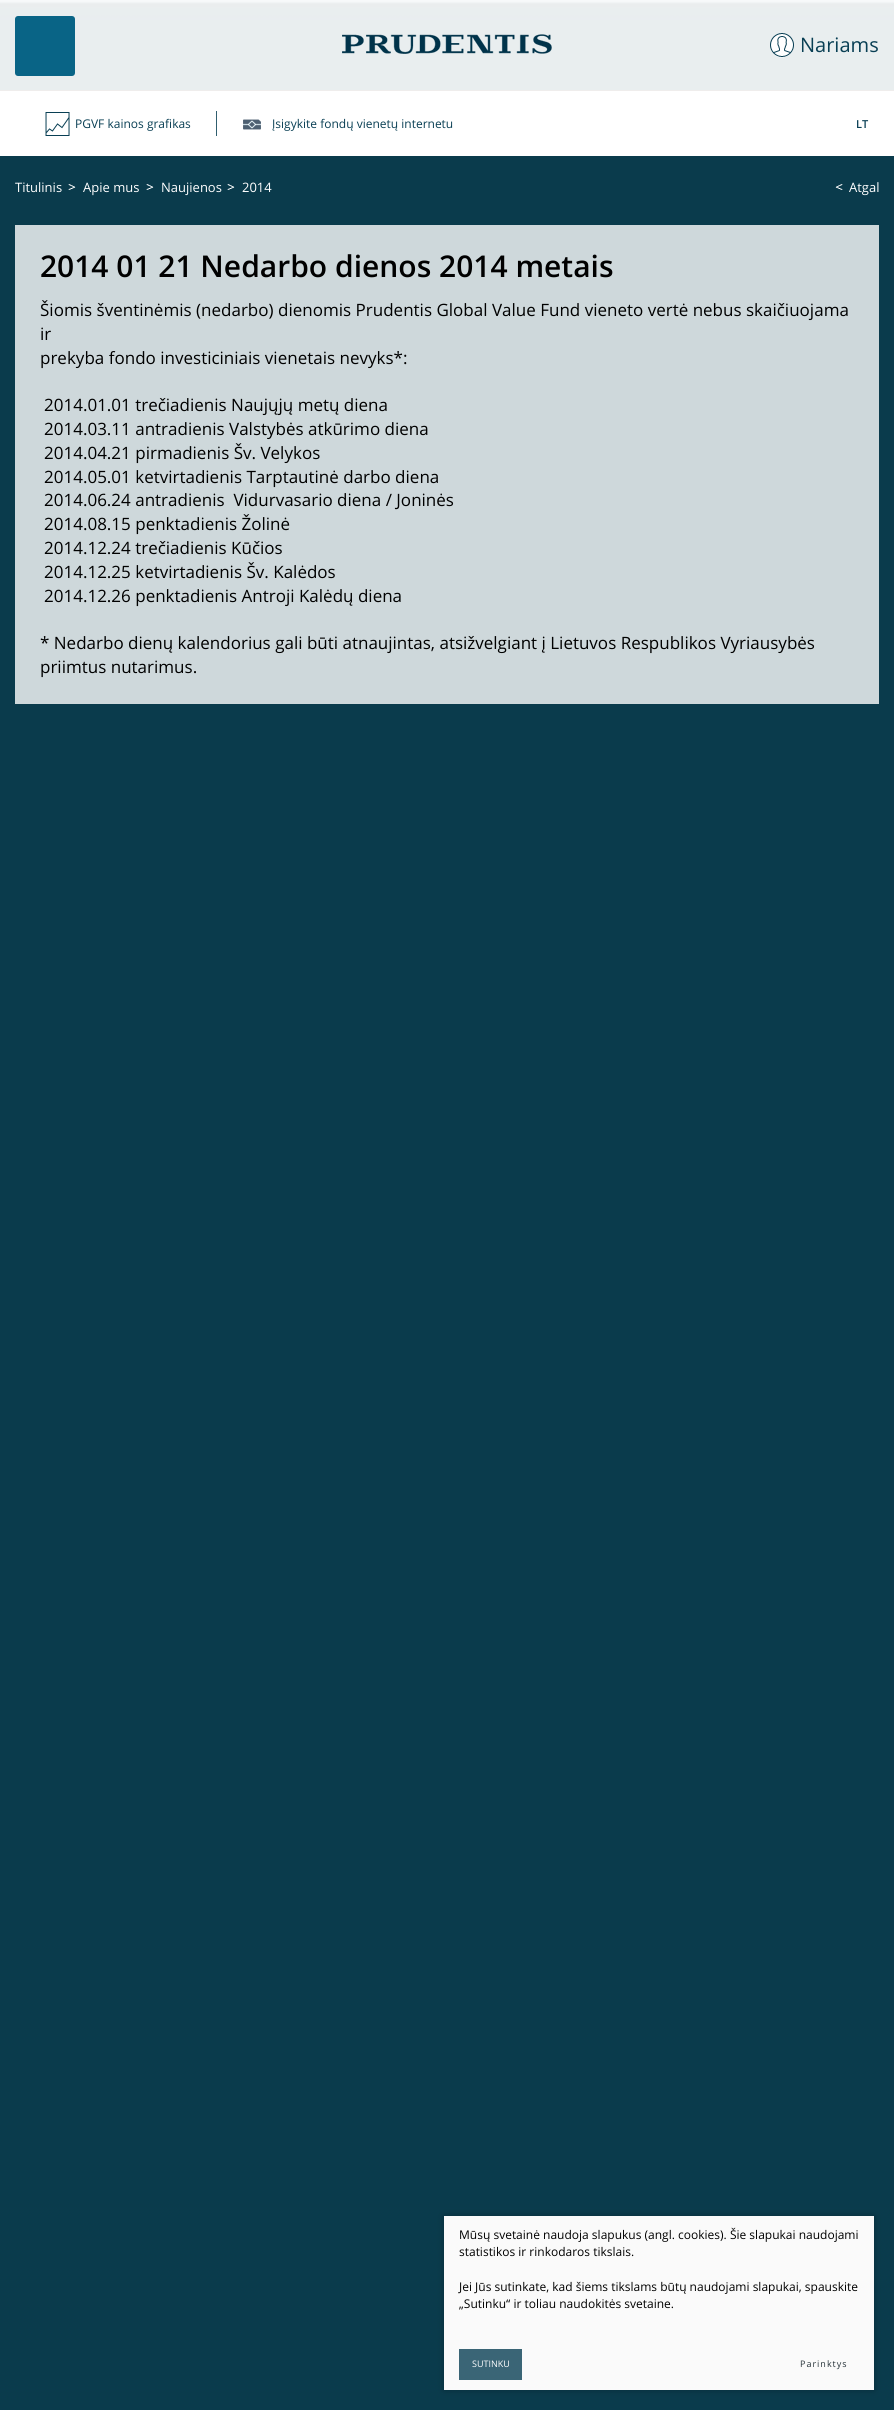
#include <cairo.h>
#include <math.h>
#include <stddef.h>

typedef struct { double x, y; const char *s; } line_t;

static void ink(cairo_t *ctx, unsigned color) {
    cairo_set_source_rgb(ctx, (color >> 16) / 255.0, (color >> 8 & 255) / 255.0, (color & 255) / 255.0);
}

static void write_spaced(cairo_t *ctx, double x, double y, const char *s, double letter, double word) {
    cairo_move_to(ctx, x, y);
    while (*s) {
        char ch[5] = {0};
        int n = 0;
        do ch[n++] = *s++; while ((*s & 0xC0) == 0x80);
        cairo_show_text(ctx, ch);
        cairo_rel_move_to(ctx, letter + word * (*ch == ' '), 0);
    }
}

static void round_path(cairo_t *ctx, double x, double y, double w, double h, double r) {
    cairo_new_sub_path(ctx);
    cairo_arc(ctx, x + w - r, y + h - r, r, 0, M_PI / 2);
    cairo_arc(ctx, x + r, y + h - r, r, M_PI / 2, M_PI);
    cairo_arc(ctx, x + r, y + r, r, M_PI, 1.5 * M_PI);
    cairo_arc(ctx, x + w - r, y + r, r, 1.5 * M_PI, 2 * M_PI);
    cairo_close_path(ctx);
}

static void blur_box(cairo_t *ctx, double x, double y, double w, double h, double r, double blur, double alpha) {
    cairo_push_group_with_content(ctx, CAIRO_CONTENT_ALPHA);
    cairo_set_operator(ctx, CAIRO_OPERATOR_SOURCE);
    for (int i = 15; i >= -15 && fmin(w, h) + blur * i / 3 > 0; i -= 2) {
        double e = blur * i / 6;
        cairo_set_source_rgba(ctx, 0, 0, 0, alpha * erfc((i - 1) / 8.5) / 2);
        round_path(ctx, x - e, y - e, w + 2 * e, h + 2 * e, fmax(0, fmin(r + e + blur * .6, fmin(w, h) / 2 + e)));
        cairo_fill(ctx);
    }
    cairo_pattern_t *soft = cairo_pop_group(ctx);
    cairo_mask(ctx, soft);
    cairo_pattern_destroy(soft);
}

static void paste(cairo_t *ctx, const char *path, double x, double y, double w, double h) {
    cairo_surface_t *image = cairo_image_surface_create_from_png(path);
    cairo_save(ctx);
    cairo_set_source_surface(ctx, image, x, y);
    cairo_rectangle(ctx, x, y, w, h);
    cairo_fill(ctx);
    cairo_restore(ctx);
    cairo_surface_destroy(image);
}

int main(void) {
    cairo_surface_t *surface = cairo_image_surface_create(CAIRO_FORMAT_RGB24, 894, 2410);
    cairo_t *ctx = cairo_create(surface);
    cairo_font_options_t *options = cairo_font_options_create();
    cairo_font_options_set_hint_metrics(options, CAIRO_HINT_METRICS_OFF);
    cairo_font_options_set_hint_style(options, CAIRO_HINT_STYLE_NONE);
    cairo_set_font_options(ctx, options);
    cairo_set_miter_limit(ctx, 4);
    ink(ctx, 0xFFFFFF);
    cairo_paint(ctx);
    paste(ctx, "media/1.png", 0, 0, 894, 2410);
    ink(ctx, 0xFFFFFF);
    cairo_rectangle(ctx, 0, 91, 894, 65);
    cairo_fill(ctx);
    paste(ctx, "media/2.png", 45, 112, 25, 24);
    cairo_select_font_face(ctx, "Open Sans", CAIRO_FONT_SLANT_NORMAL, CAIRO_FONT_WEIGHT_NORMAL);
    cairo_set_font_size(ctx, 12);
    ink(ctx, 0x093F54);
    cairo_move_to(ctx, 75, 128);
    cairo_show_text(ctx, "PGVF kainos grafikas");
    ink(ctx, 0x305E6F);
    cairo_rectangle(ctx, 216, 111, 1, 25);
    cairo_fill(ctx);
    paste(ctx, "media/3.png", 243, 119, 18, 11);
    ink(ctx, 0x093F54);
    cairo_move_to(ctx, 272, 128);
    cairo_show_text(ctx, "Įsigykite fondų vienetų internetu");
    cairo_set_source_rgba(ctx, 1, 1, 1, 0.7);
    cairo_rectangle(ctx, 0, 0, 894, 90);
    cairo_fill(ctx);
    cairo_rectangle(ctx, 0, 0, 894, 90);
    cairo_fill(ctx);
    ink(ctx, 0xEFEDEC);
    cairo_rectangle(ctx, 0, 90, 894, 1);
    cairo_fill(ctx);
    ink(ctx, 0x096486);
    round_path(ctx, 15, 16, 60, 60, 3);
    cairo_fill(ctx);
    paste(ctx, "media/4.png", 342, 34, 210, 20);
    paste(ctx, "media/5.png", 770, 33, 24, 25);
    cairo_set_font_size(ctx, 20);
    ink(ctx, 0x093F54);
    cairo_move_to(ctx, 800, 52);
    cairo_show_text(ctx, "Nariams");
    cairo_select_font_face(ctx, "Open Sans SemiBold", CAIRO_FONT_SLANT_NORMAL, CAIRO_FONT_WEIGHT_NORMAL);
    cairo_set_font_size(ctx, 11);
    cairo_move_to(ctx, 856, 128);
    cairo_show_text(ctx, "LT");
    paste(ctx, "media/6.png", 68, 184, 8, 6);
    cairo_select_font_face(ctx, "Open Sans", CAIRO_FONT_SLANT_NORMAL, CAIRO_FONT_WEIGHT_NORMAL);
    cairo_set_font_size(ctx, 13);
    ink(ctx, 0xFFFFFF);
    cairo_move_to(ctx, 15, 192);
    cairo_show_text(ctx, "Titulinis");
    paste(ctx, "media/6.png", 146, 184, 8, 6);
    cairo_move_to(ctx, 83, 192);
    cairo_show_text(ctx, "Apie mus");
    paste(ctx, "media/6.png", 227, 184, 8, 6);
    cairo_move_to(ctx, 161, 192);
    cairo_show_text(ctx, "Naujienos");
    cairo_move_to(ctx, 242, 192);
    cairo_show_text(ctx, "2014");
    paste(ctx, "media/7.png", 835, 184, 8, 6);
    cairo_move_to(ctx, 849, 192);
    cairo_show_text(ctx, "Atgal");
    ink(ctx, 0xCED8DB);
    cairo_rectangle(ctx, 15, 225, 864, 479);
    cairo_fill(ctx);
    cairo_select_font_face(ctx, "Open Sans SemiBold", CAIRO_FONT_SLANT_NORMAL, CAIRO_FONT_WEIGHT_NORMAL);
    cairo_set_font_size(ctx, 30);
    ink(ctx, 0x000000);
    cairo_move_to(ctx, 40, 277);
    cairo_show_text(ctx, "2014 01 21 Nedarbo dienos 2014 metais");
    cairo_select_font_face(ctx, "Open Sans", CAIRO_FONT_SLANT_NORMAL, CAIRO_FONT_WEIGHT_NORMAL);
    cairo_set_font_size(ctx, 17);
    {
        static const line_t items[] = {
            {40, 316, "Šiomis šventinėmis (nedarbo) dienomis Prudentis Global Value Fund vieneto vertė nebus skaičiuojama"},
            {40, 340, "ir"},
            {40, 364, "prekyba fondo investiciniais vienetais nevyks*:"},
            {44, 411, "2014.01.01 trečiadienis Naujųjų metų diena"},
            {44, 435, "2014.03.11 antradienis Valstybės atkūrimo diena"},
            {44, 459, "2014.04.21 pirmadienis Šv. Velykos"},
            {44, 483, "2014.05.01 ketvirtadienis Tarptautinė darbo diena"},
            {44, 506, "2014.06.24 antradienis  Vidurvasario diena / Joninės"},
            {44, 530, "2014.08.15 penktadienis Žolinė"},
            {44, 554, "2014.12.24 trečiadienis Kūčios"},
            {44, 578, "2014.12.25 ketvirtadienis Šv. Kalėdos"},
            {44, 602, "2014.12.26 penktadienis Antroji Kalėdų diena"},
            {40, 649, "* Nedarbo dienų kalendorius gali būti atnaujintas, atsižvelgiant į Lietuvos Respublikos Vyriausybės"},
            {40, 673, "priimtus nutarimus."},
        };
        for (size_t i = 0; i < sizeof items / sizeof *items; i++) {
            cairo_move_to(ctx, items[i].x, items[i].y);
            cairo_show_text(ctx, items[i].s);
        }
    }
    ink(ctx, 0x000000);
    blur_box(ctx, 444, 2216, 430, 174, 0, 3.5, 0.25);
    ink(ctx, 0xFAFAFA);
    cairo_rectangle(ctx, 444, 2216, 430, 174);
    cairo_fill(ctx);
    cairo_set_font_size(ctx, 12);
    ink(ctx, 0x000000);
    {
        static const line_t items[] = {
            {459, 2239, "Mūsų svetainė naudoja slapukus (angl. cookies). Šie slapukai naudojami"},
            {459, 2256, "statistikos ir rinkodaros tikslais."},
            {459, 2291, "Jei Jūs sutinkate, kad šiems tikslams būtų naudojami slapukai, spauskite"},
            {459, 2308, "„Sutinku“ ir toliau naudokitės svetaine."},
        };
        for (size_t i = 0; i < sizeof items / sizeof *items; i++) {
            cairo_move_to(ctx, items[i].x, items[i].y);
            cairo_show_text(ctx, items[i].s);
        }
    }
    ink(ctx, 0x3A6576);
    cairo_rectangle(ctx, 459, 2349, 63, 31);
    cairo_fill(ctx);
    cairo_set_font_size(ctx, 9);
    ink(ctx, 0xFFFFFF);
    cairo_move_to(ctx, 472, 2367);
    cairo_show_text(ctx, "SUTINKU");
    ink(ctx, 0x263238);
    write_spaced(ctx, 800, 2367, "Parinktys", 1, 0);
    cairo_surface_write_to_png(surface, "image.png");
    cairo_font_options_destroy(options);
    cairo_destroy(ctx);
    cairo_surface_destroy(surface);
    return 0;
}
